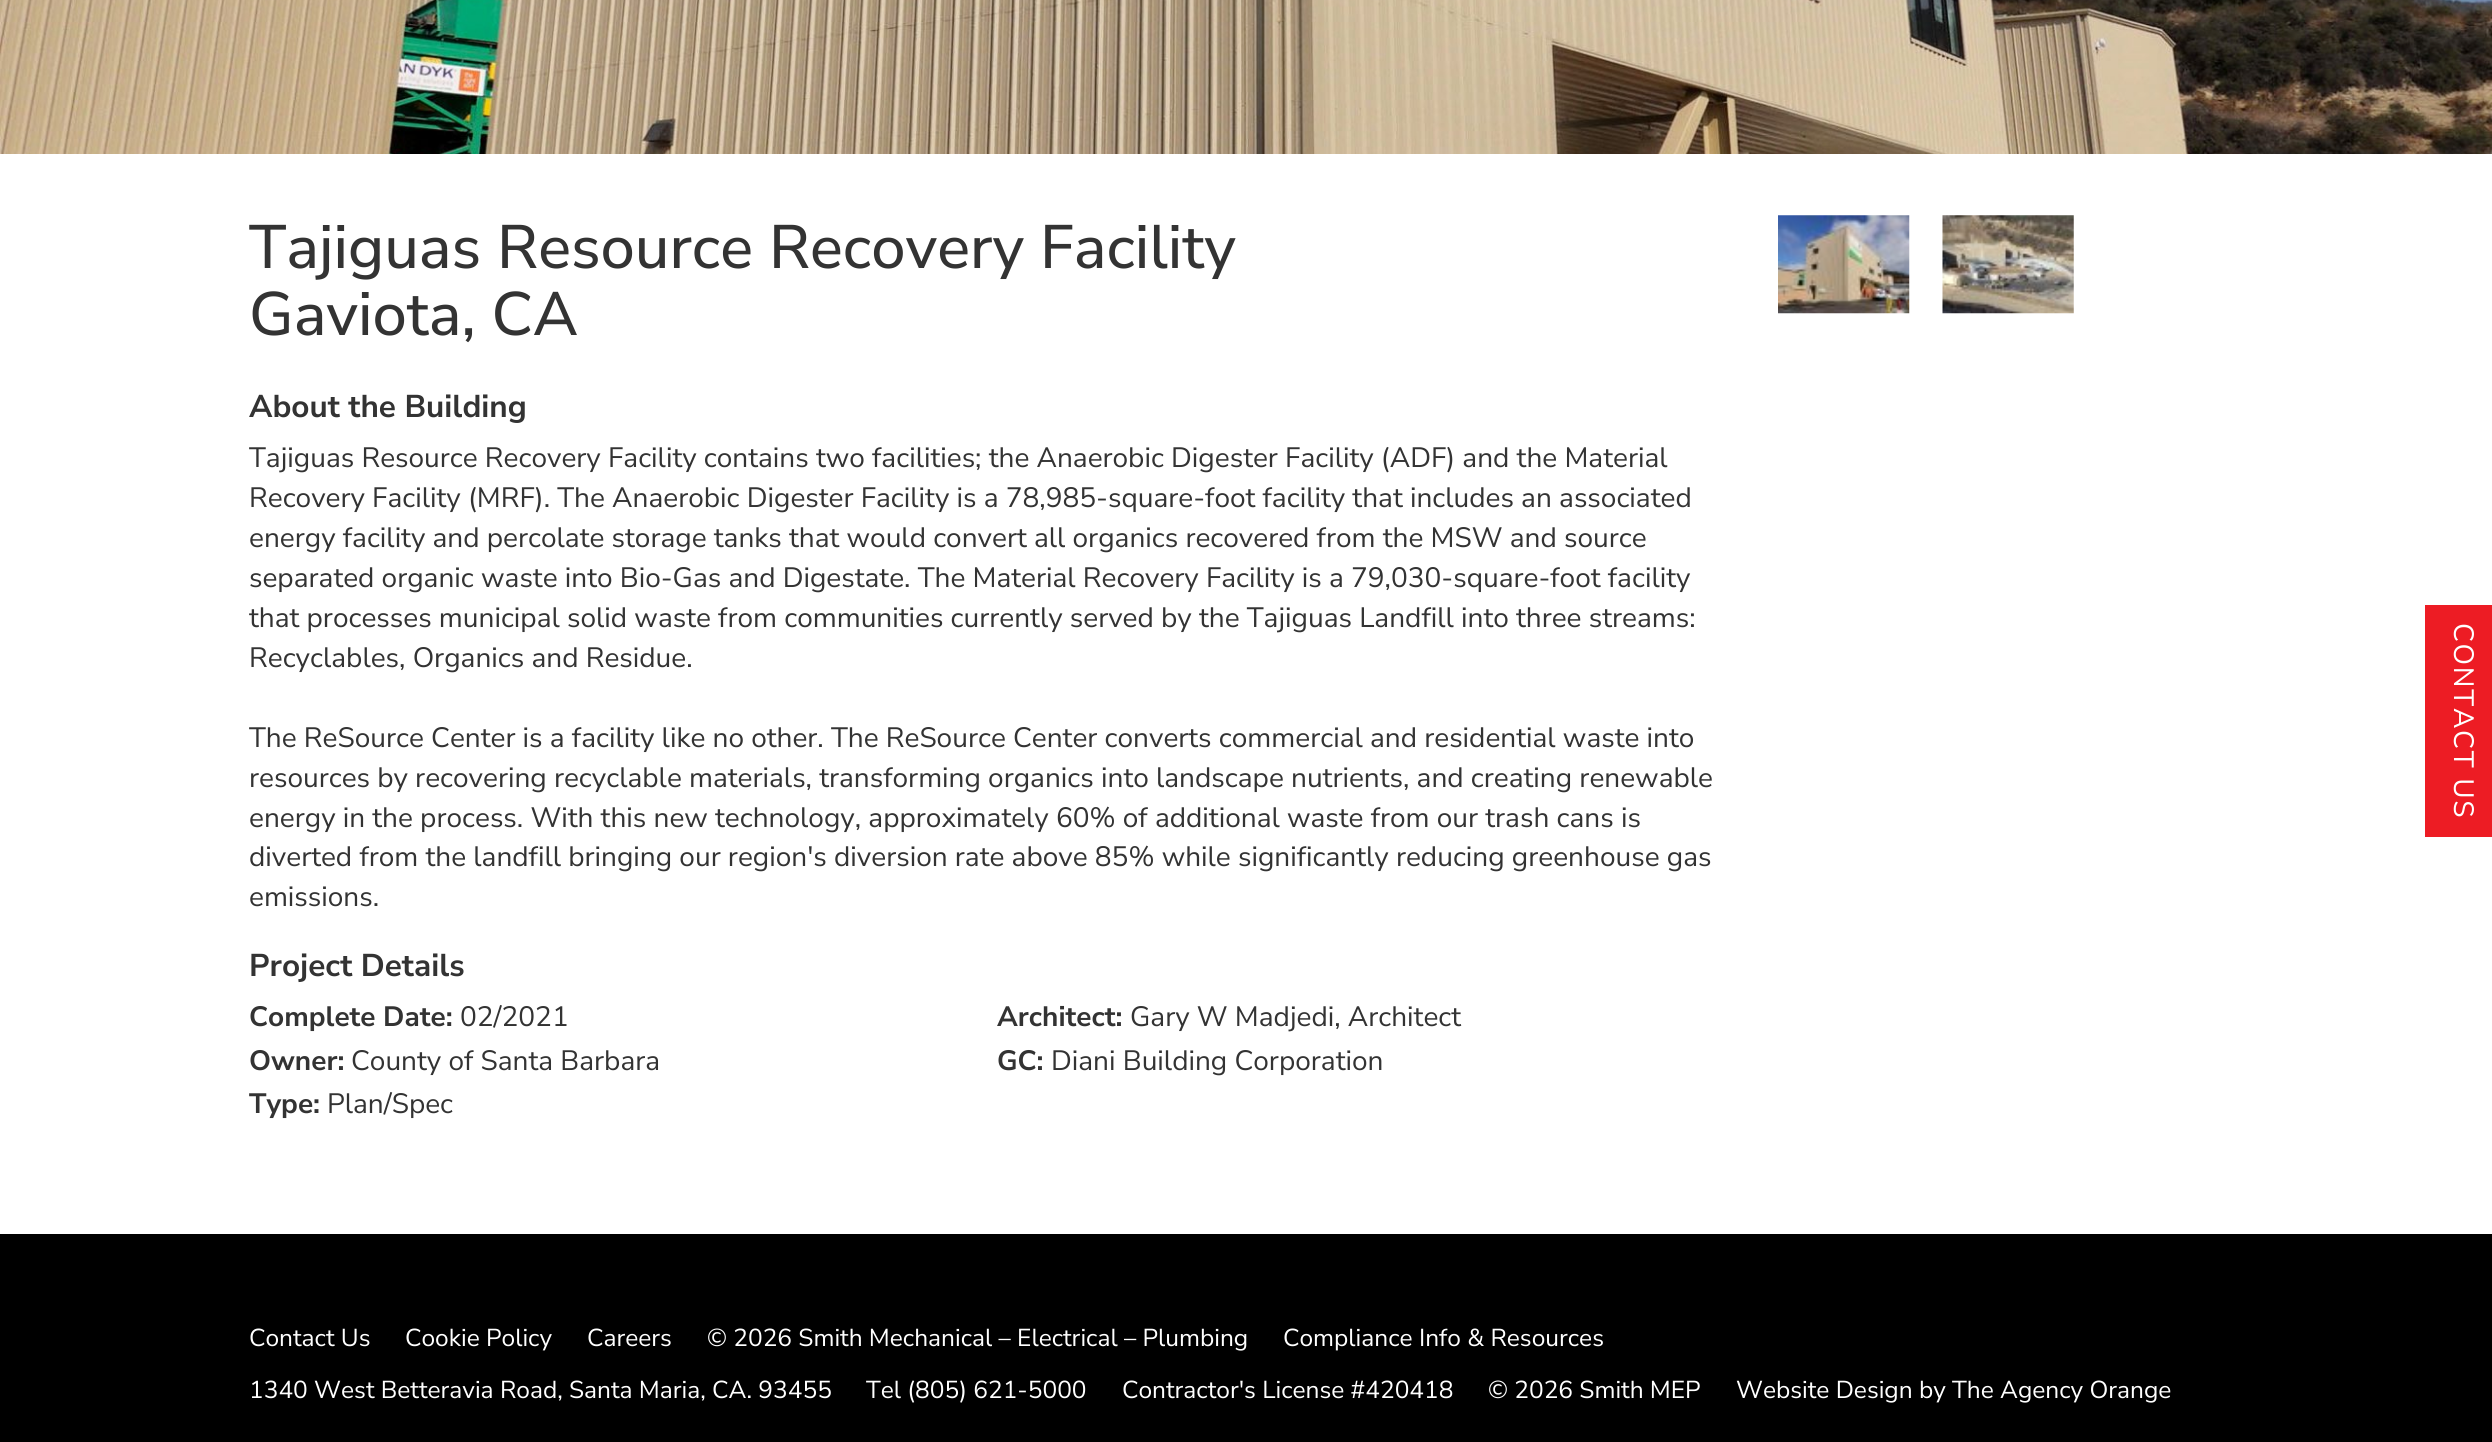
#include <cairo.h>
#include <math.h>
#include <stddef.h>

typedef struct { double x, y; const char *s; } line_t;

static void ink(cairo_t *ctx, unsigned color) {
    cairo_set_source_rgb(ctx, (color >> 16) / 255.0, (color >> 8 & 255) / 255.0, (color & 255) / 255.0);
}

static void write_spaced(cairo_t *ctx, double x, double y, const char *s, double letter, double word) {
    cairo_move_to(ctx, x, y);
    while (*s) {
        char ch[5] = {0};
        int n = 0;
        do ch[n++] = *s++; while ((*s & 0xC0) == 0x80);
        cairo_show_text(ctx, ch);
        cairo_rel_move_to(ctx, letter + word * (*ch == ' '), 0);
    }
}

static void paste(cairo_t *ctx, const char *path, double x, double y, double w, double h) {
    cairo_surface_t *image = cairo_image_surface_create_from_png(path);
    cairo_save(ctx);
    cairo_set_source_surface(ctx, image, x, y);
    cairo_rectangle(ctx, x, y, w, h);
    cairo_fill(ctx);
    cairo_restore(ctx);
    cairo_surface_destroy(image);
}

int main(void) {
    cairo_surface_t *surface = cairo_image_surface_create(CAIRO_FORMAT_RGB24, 2492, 1442);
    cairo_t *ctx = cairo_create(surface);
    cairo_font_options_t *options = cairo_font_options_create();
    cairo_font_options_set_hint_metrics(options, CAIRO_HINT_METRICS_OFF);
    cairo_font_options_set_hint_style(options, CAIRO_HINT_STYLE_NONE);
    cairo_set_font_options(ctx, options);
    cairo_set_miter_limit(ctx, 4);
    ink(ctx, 0xFFFFFF);
    cairo_paint(ctx);
    paste(ctx, "media/1.png", 0, 0, 2492, 154);
    cairo_select_font_face(ctx, "Nunito Sans Medium", CAIRO_FONT_SLANT_NORMAL, CAIRO_FONT_WEIGHT_NORMAL);
    cairo_set_font_size(ctx, 61.25);
    ink(ctx, 0x333333);
    cairo_move_to(ctx, 249, 268);
    cairo_show_text(ctx, "Tajiguas Resource Recovery Facility");
    cairo_move_to(ctx, 249, 335);
    cairo_show_text(ctx, "Gaviota, CA");
    cairo_select_font_face(ctx, "Nunito Sans", CAIRO_FONT_SLANT_NORMAL, CAIRO_FONT_WEIGHT_BOLD);
    cairo_set_font_size(ctx, 31.5);
    cairo_move_to(ctx, 249, 417);
    cairo_show_text(ctx, "About the Building");
    cairo_select_font_face(ctx, "Nunito Sans", CAIRO_FONT_SLANT_NORMAL, CAIRO_FONT_WEIGHT_NORMAL);
    cairo_set_font_size(ctx, 28);
    {
        static const line_t items[] = {
            {249, 467, "Tajiguas Resource Recovery Facility contains two facilities; the Anaerobic Digester Facility (ADF) and the Material"},
            {249, 507, "Recovery Facility (MRF). The Anaerobic Digester Facility is a 78,985-square-foot facility that includes an associated"},
            {249, 547, "energy facility and percolate storage tanks that would convert all organics recovered from the MSW and source"},
            {249, 587, "separated organic waste into Bio-Gas and Digestate. The Material Recovery Facility is a 79,030-square-foot facility"},
            {249, 627, "that processes municipal solid waste from communities currently served by the Tajiguas Landfill into three streams:"},
            {249, 667, "Recyclables, Organics and Residue."},
            {249, 747, "The ReSource Center is a facility like no other. The ReSource Center converts commercial and residential waste into"},
            {249, 787, "resources by recovering recyclable materials, transforming organics into landscape nutrients, and creating renewable"},
            {249, 827, "energy in the process. With this new technology, approximately 60% of additional waste from our trash cans is"},
            {249, 866, "diverted from the landfill bringing our region's diversion rate above 85% while significantly reducing greenhouse gas"},
            {249, 906, "emissions."},
        };
        for (size_t i = 0; i < sizeof items / sizeof *items; i++) {
            cairo_move_to(ctx, items[i].x, items[i].y);
            cairo_show_text(ctx, items[i].s);
        }
    }
    cairo_select_font_face(ctx, "Nunito Sans", CAIRO_FONT_SLANT_NORMAL, CAIRO_FONT_WEIGHT_BOLD);
    cairo_set_font_size(ctx, 31.5);
    cairo_move_to(ctx, 249, 976);
    cairo_show_text(ctx, "Project Details");
    cairo_set_font_size(ctx, 28);
    cairo_move_to(ctx, 249, 1026);
    cairo_show_text(ctx, "Complete Date:");
    cairo_select_font_face(ctx, "Nunito Sans", CAIRO_FONT_SLANT_NORMAL, CAIRO_FONT_WEIGHT_NORMAL);
    cairo_move_to(ctx, 460, 1026);
    cairo_show_text(ctx, "02/2021");
    cairo_select_font_face(ctx, "Nunito Sans", CAIRO_FONT_SLANT_NORMAL, CAIRO_FONT_WEIGHT_BOLD);
    cairo_move_to(ctx, 249, 1070);
    cairo_show_text(ctx, "Owner:");
    cairo_select_font_face(ctx, "Nunito Sans", CAIRO_FONT_SLANT_NORMAL, CAIRO_FONT_WEIGHT_NORMAL);
    cairo_move_to(ctx, 351, 1070);
    cairo_show_text(ctx, "County of Santa Barbara");
    cairo_select_font_face(ctx, "Nunito Sans", CAIRO_FONT_SLANT_NORMAL, CAIRO_FONT_WEIGHT_BOLD);
    cairo_move_to(ctx, 249, 1113);
    cairo_show_text(ctx, "Type:");
    cairo_select_font_face(ctx, "Nunito Sans", CAIRO_FONT_SLANT_NORMAL, CAIRO_FONT_WEIGHT_NORMAL);
    cairo_move_to(ctx, 327, 1113);
    cairo_show_text(ctx, "Plan/Spec");
    cairo_select_font_face(ctx, "Nunito Sans", CAIRO_FONT_SLANT_NORMAL, CAIRO_FONT_WEIGHT_BOLD);
    cairo_move_to(ctx, 997, 1026);
    cairo_show_text(ctx, "Architect:");
    cairo_select_font_face(ctx, "Nunito Sans", CAIRO_FONT_SLANT_NORMAL, CAIRO_FONT_WEIGHT_NORMAL);
    cairo_move_to(ctx, 1130, 1026);
    cairo_show_text(ctx, "Gary W Madjedi, Architect");
    cairo_select_font_face(ctx, "Nunito Sans", CAIRO_FONT_SLANT_NORMAL, CAIRO_FONT_WEIGHT_BOLD);
    cairo_move_to(ctx, 997, 1070);
    cairo_show_text(ctx, "GC:");
    cairo_select_font_face(ctx, "Nunito Sans", CAIRO_FONT_SLANT_NORMAL, CAIRO_FONT_WEIGHT_NORMAL);
    cairo_move_to(ctx, 1051, 1070);
    cairo_show_text(ctx, "Diani Building Corporation");
    paste(ctx, "media/2.png", 1778, 215, 132, 99);
    paste(ctx, "media/3.png", 1942, 215, 132, 99);
    ink(ctx, 0xED1C24);
    cairo_rectangle(ctx, 2425, 605, 67, 232);
    cairo_fill(ctx);
    ink(ctx, 0xFFFFFF);
    cairo_save(ctx);
    cairo_translate(ctx, 2454, 623);
    cairo_rotate(ctx, 90 * M_PI / 180);
    write_spaced(ctx, 0, 0, "CONTACT US", 1.75, 0);
    cairo_restore(ctx);
    ink(ctx, 0x000000);
    cairo_rectangle(ctx, 0, 1234, 2492, 208);
    cairo_fill(ctx);
    cairo_set_font_size(ctx, 24.5);
    ink(ctx, 0xFFFFFF);
    {
        static const line_t items[] = {
            {249, 1346, "Contact Us"},
            {405, 1346, "Cookie Policy"},
            {587, 1346, "Careers"},
            {707, 1346, "© 2026 Smith Mechanical – Electrical – Plumbing"},
            {1283, 1346, "Compliance Info & Resources"},
            {249, 1398, "1340 West Betteravia Road, Santa Maria, CA. 93455"},
            {866, 1398, "Tel (805) 621-5000"},
            {1122, 1398, "Contractor's License #420418"},
            {1488, 1398, "© 2026 Smith MEP"},
            {1736, 1398, "Website Design by The Agency Orange"},
        };
        for (size_t i = 0; i < sizeof items / sizeof *items; i++) {
            cairo_move_to(ctx, items[i].x, items[i].y);
            cairo_show_text(ctx, items[i].s);
        }
    }
    cairo_surface_write_to_png(surface, "image.png");
    cairo_font_options_destroy(options);
    cairo_destroy(ctx);
    cairo_surface_destroy(surface);
    return 0;
}
